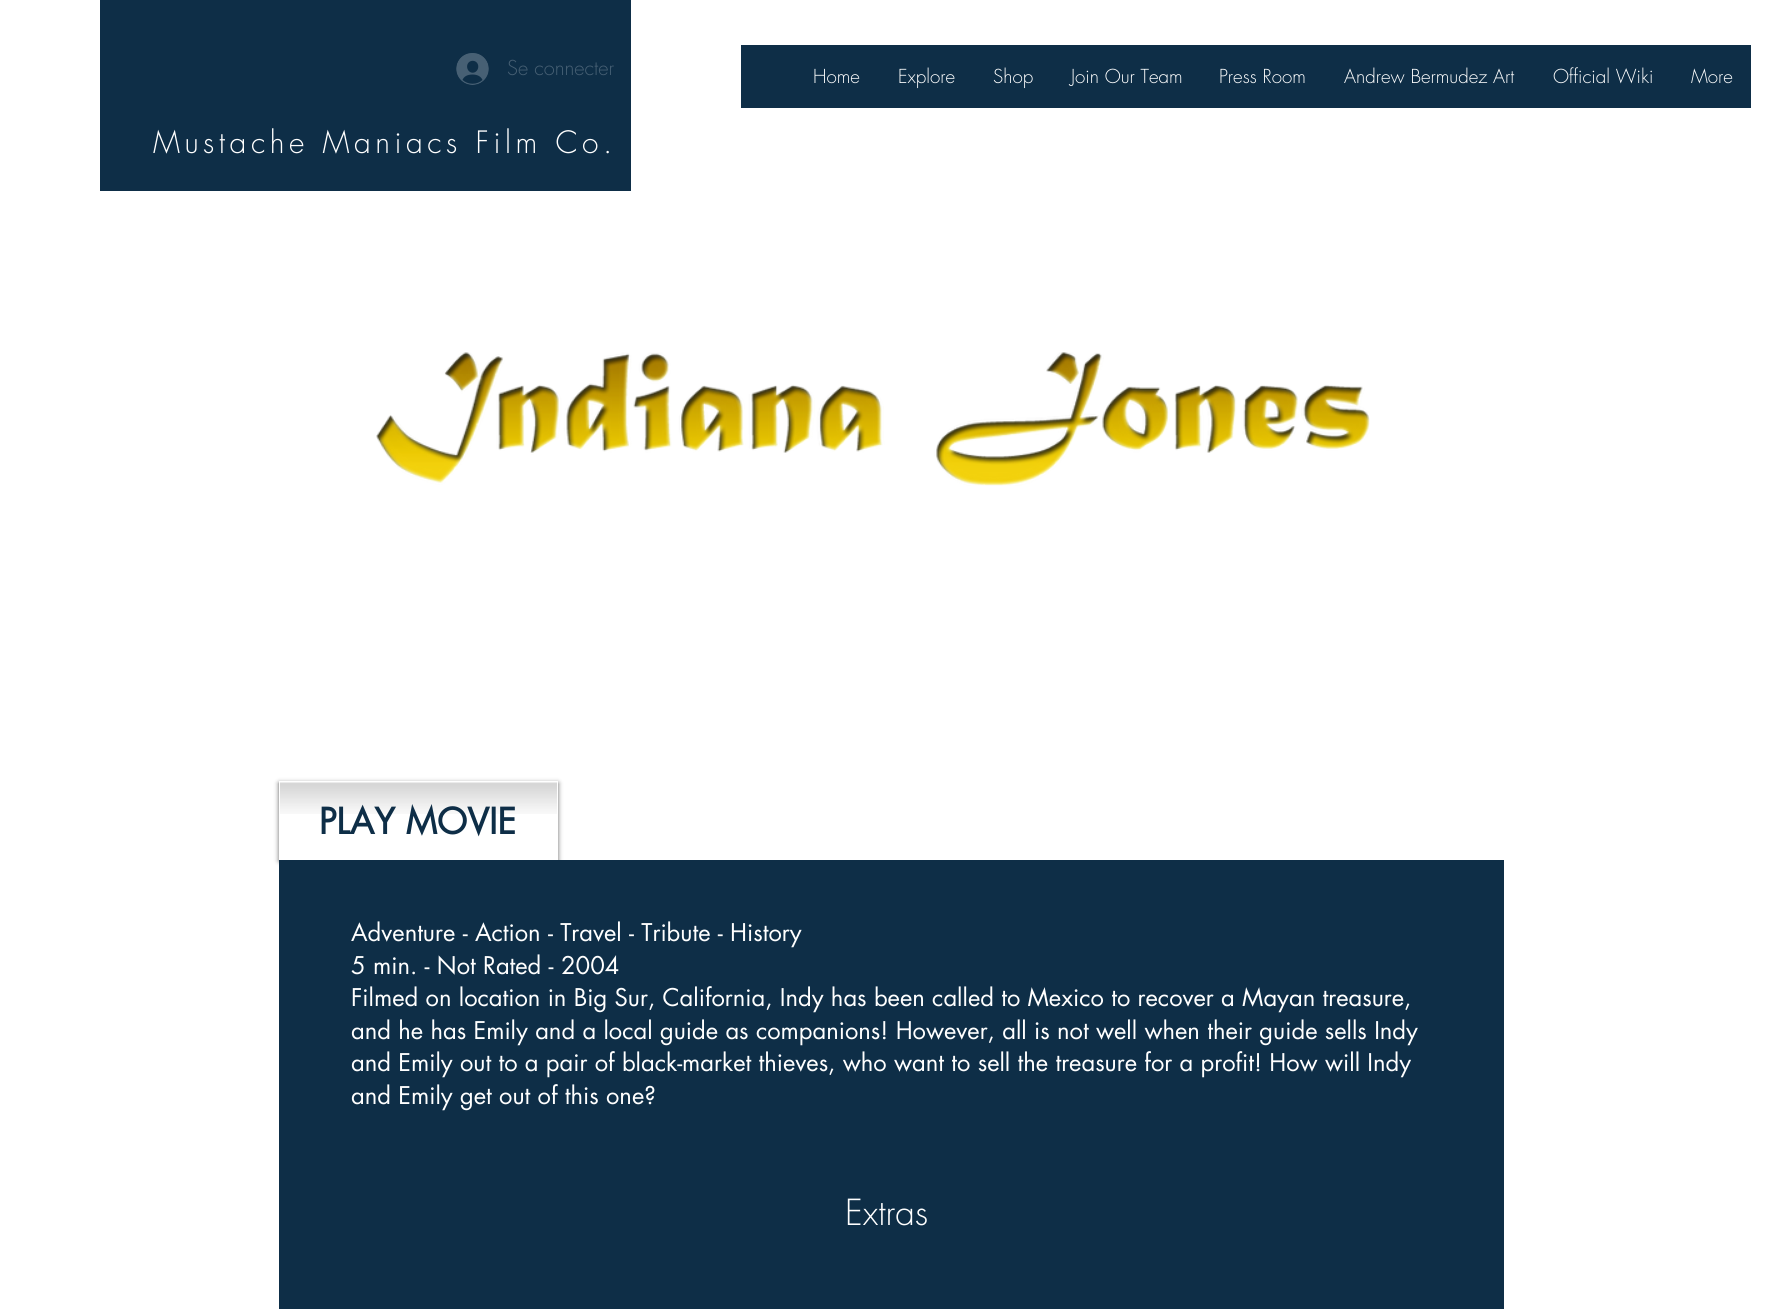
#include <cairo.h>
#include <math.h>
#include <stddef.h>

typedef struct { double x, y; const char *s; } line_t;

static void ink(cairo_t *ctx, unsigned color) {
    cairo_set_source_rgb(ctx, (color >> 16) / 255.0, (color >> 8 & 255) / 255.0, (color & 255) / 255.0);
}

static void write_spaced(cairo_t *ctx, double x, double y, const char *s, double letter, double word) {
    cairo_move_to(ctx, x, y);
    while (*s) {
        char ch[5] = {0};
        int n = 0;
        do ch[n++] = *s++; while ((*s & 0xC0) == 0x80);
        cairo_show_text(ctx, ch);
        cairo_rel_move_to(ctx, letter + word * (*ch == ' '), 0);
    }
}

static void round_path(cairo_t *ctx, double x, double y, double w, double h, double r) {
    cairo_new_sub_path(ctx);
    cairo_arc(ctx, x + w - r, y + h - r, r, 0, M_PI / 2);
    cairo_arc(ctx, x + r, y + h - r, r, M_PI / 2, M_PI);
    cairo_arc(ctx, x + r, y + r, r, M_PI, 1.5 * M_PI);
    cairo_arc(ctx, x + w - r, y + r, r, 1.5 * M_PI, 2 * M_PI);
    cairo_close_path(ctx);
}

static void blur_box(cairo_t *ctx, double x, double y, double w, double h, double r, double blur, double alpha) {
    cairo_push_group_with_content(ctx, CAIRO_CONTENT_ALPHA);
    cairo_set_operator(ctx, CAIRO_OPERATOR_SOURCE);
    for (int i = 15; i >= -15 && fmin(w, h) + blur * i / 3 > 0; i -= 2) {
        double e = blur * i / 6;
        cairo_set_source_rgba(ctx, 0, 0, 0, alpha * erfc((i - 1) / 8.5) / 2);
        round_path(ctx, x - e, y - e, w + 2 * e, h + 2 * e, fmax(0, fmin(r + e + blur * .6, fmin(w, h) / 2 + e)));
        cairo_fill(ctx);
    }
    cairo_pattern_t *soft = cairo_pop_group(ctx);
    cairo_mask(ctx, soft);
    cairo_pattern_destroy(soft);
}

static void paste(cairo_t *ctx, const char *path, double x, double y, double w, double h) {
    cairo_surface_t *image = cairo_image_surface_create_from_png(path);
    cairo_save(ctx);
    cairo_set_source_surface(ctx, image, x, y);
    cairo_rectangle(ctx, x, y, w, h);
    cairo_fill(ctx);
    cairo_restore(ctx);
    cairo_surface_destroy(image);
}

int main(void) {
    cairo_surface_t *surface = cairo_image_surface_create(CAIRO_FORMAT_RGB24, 1781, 1309);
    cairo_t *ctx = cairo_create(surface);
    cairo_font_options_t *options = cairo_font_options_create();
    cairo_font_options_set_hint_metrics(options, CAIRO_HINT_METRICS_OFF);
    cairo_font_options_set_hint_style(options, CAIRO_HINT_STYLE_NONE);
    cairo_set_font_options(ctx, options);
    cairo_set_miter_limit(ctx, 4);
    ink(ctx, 0xFFFFFF);
    cairo_paint(ctx);
    ink(ctx, 0x0E2E47);
    cairo_rectangle(ctx, 100, 0, 531, 191);
    cairo_fill(ctx);
    paste(ctx, "media/1.png", 456, 53, 33, 32);
    cairo_select_font_face(ctx, "futura Light", CAIRO_FONT_SLANT_NORMAL, CAIRO_FONT_WEIGHT_NORMAL);
    cairo_set_font_size(ctx, 20);
    ink(ctx, 0x476074);
    cairo_move_to(ctx, 507, 75);
    cairo_show_text(ctx, "Se connecter");
    cairo_set_font_size(ctx, 30);
    ink(ctx, 0xFFFFFF);
    write_spaced(ctx, 153, 153, "Mustache Maniacs Film Co.", 4.5, 0);
    ink(ctx, 0x0E2E47);
    cairo_rectangle(ctx, 741, 45, 1010, 63);
    cairo_fill(ctx);
    cairo_set_font_size(ctx, 18.75);
    ink(ctx, 0xFFFFFF);
    {
        static const line_t items[] = {
            {813, 83, "Home"},
            {898, 83, "Explore"},
            {993, 83, "Shop"},
            {1071, 83, "Join Our Team"},
            {1219, 83, "Press Room"},
            {1344, 83, "Andrew Bermudez Art"},
            {1553, 83, "Official Wiki"},
            {1691, 83, "More"},
        };
        for (size_t i = 0; i < sizeof items / sizeof *items; i++) {
            cairo_move_to(ctx, items[i].x, items[i].y);
            cairo_show_text(ctx, items[i].s);
        }
    }
    paste(ctx, "media/2.png", 376, 352, 994, 134);
    ink(ctx, 0x000000);
    blur_box(ctx, 279, 783, 279, 78, 0, 2.5, 0.6);
    ink(ctx, 0xFFFFFF);
    cairo_rectangle(ctx, 280, 782, 277, 77);
    cairo_fill(ctx);
    paste(ctx, "media/3.png", 278, 782, 279, 32);
    cairo_rectangle(ctx, 279.5, 781.5, 278, 78);
    cairo_set_line_width(ctx, 1);
    cairo_stroke(ctx);
    cairo_select_font_face(ctx, "futura", CAIRO_FONT_SLANT_NORMAL, CAIRO_FONT_WEIGHT_BOLD);
    cairo_set_font_size(ctx, 35);
    ink(ctx, 0x0E2E47);
    cairo_move_to(ctx, 319, 834);
    cairo_show_text(ctx, "PLAY MOVIE");
    cairo_rectangle(ctx, 279, 860, 1225, 449);
    cairo_fill(ctx);
    cairo_select_font_face(ctx, "futura", CAIRO_FONT_SLANT_NORMAL, CAIRO_FONT_WEIGHT_NORMAL);
    cairo_set_font_size(ctx, 23.75);
    ink(ctx, 0xFFFFFF);
    {
        static const line_t items[] = {
            {351, 941, "Adventure - Action - Travel - Tribute - History"},
            {351, 974, "5 min. - Not Rated - 2004"},
            {351, 1006, "Filmed on location in Big Sur, California, Indy has been called to Mexico to recover a Mayan treasure,"},
            {351, 1039, "and he has Emily and a local guide as companions! However, all is not well when their guide sells Indy"},
            {351, 1071, "and Emily out to a pair of black-market thieves, who want to sell the treasure for a profit! How will Indy"},
            {351, 1104, "and Emily get out of this one?"},
        };
        for (size_t i = 0; i < sizeof items / sizeof *items; i++) {
            cairo_move_to(ctx, items[i].x, items[i].y);
            cairo_show_text(ctx, items[i].s);
        }
    }
    cairo_select_font_face(ctx, "futura Light", CAIRO_FONT_SLANT_NORMAL, CAIRO_FONT_WEIGHT_NORMAL);
    cairo_set_font_size(ctx, 35);
    cairo_move_to(ctx, 845, 1225);
    cairo_show_text(ctx, "Extras");
    cairo_surface_write_to_png(surface, "image.png");
    cairo_font_options_destroy(options);
    cairo_destroy(ctx);
    cairo_surface_destroy(surface);
    return 0;
}
